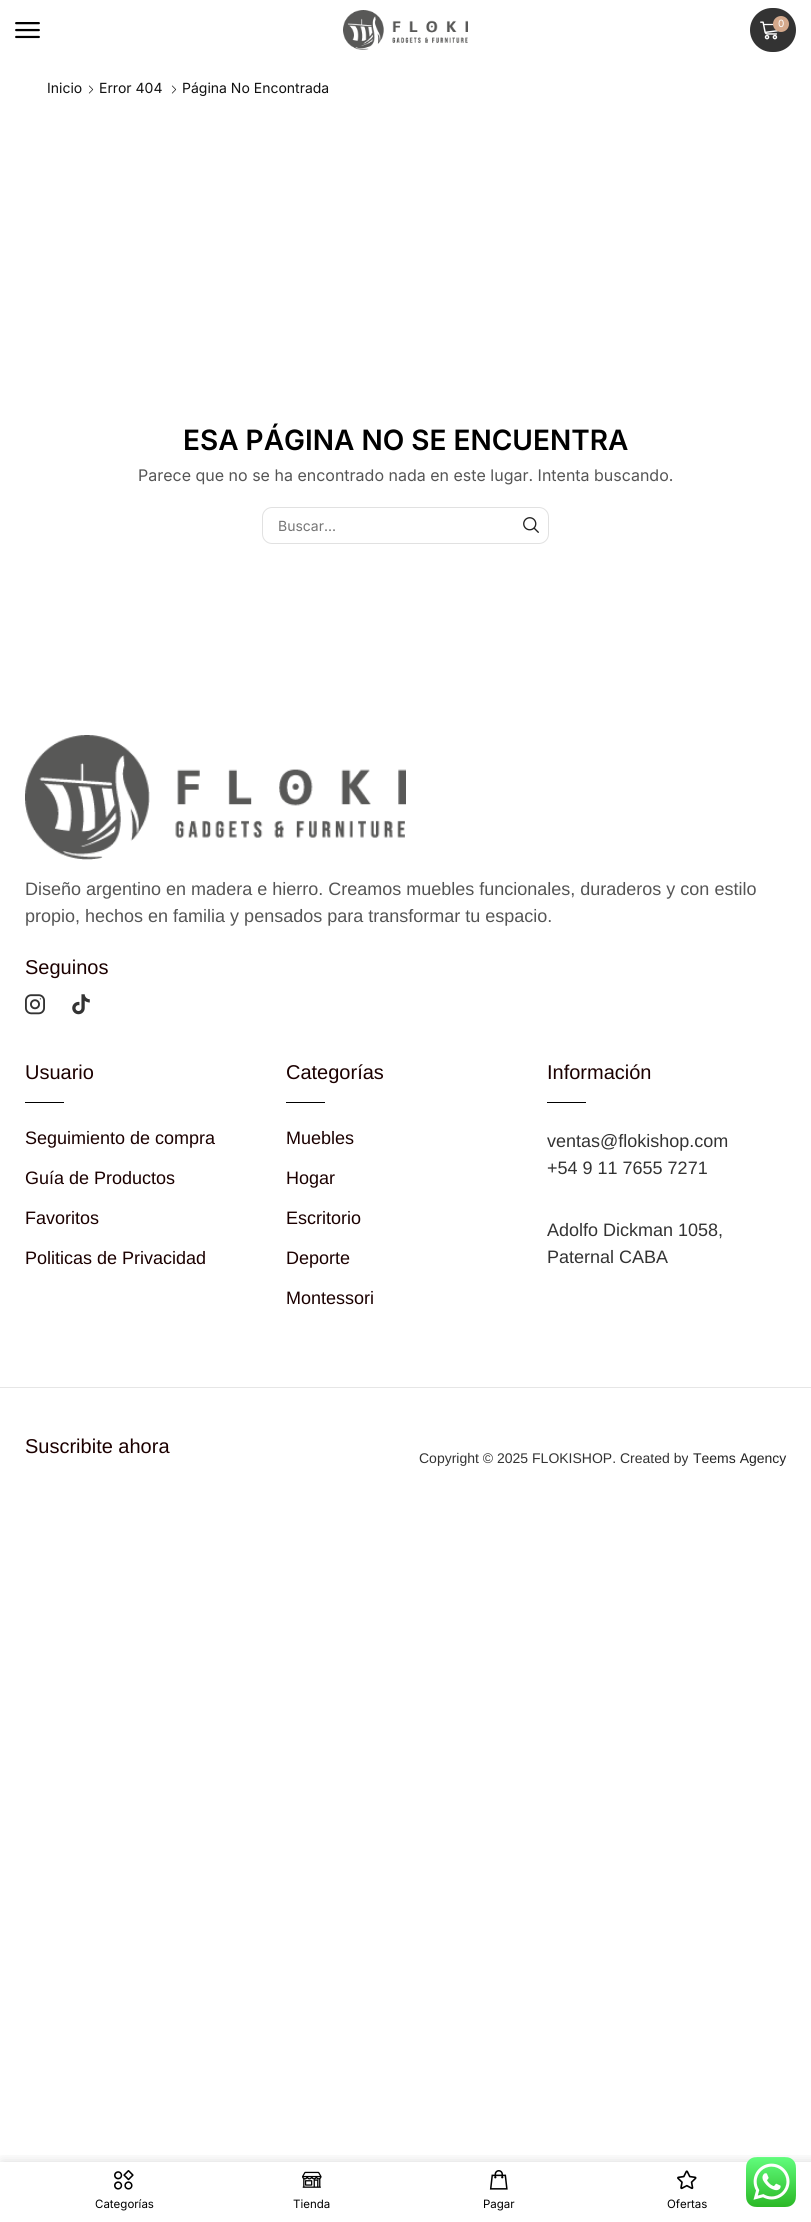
#include <cairo.h>
#include <math.h>
#include <stddef.h>

typedef struct { double x, y; const char *s; } line_t;

static void ink(cairo_t *ctx, unsigned color) {
    cairo_set_source_rgb(ctx, (color >> 16) / 255.0, (color >> 8 & 255) / 255.0, (color & 255) / 255.0);
}

static void round_path(cairo_t *ctx, double x, double y, double w, double h, double r) {
    cairo_new_sub_path(ctx);
    cairo_arc(ctx, x + w - r, y + h - r, r, 0, M_PI / 2);
    cairo_arc(ctx, x + r, y + h - r, r, M_PI / 2, M_PI);
    cairo_arc(ctx, x + r, y + r, r, M_PI, 1.5 * M_PI);
    cairo_arc(ctx, x + w - r, y + r, r, 1.5 * M_PI, 2 * M_PI);
    cairo_close_path(ctx);
}

static void blur_box(cairo_t *ctx, double x, double y, double w, double h, double r, double blur, double alpha) {
    cairo_push_group_with_content(ctx, CAIRO_CONTENT_ALPHA);
    cairo_set_operator(ctx, CAIRO_OPERATOR_SOURCE);
    for (int i = 15; i >= -15 && fmin(w, h) + blur * i / 3 > 0; i -= 2) {
        double e = blur * i / 6;
        cairo_set_source_rgba(ctx, 0, 0, 0, alpha * erfc((i - 1) / 8.5) / 2);
        round_path(ctx, x - e, y - e, w + 2 * e, h + 2 * e, fmax(0, fmin(r + e + blur * .6, fmin(w, h) / 2 + e)));
        cairo_fill(ctx);
    }
    cairo_pattern_t *soft = cairo_pop_group(ctx);
    cairo_mask(ctx, soft);
    cairo_pattern_destroy(soft);
}

static void paste(cairo_t *ctx, const char *path, double x, double y, double w, double h) {
    cairo_surface_t *image = cairo_image_surface_create_from_png(path);
    cairo_save(ctx);
    cairo_set_source_surface(ctx, image, x, y);
    cairo_rectangle(ctx, x, y, w, h);
    cairo_fill(ctx);
    cairo_restore(ctx);
    cairo_surface_destroy(image);
}

int main(void) {
    cairo_surface_t *surface = cairo_image_surface_create(CAIRO_FORMAT_RGB24, 811, 2222);
    cairo_t *ctx = cairo_create(surface);
    cairo_font_options_t *options = cairo_font_options_create();
    cairo_font_options_set_hint_metrics(options, CAIRO_HINT_METRICS_OFF);
    cairo_font_options_set_hint_style(options, CAIRO_HINT_STYLE_NONE);
    cairo_set_font_options(ctx, options);
    cairo_set_miter_limit(ctx, 4);
    ink(ctx, 0xFFFFFF);
    cairo_paint(ctx);
    paste(ctx, "media/1.png", 15, 22, 25, 17);
    paste(ctx, "media/2.png", 343, 10, 125, 40);
    ink(ctx, 0x333333);
    round_path(ctx, 750, 8, 46, 44, 22);
    cairo_fill(ctx);
    paste(ctx, "media/3.png", 760, 21, 18, 19);
    ink(ctx, 0xD4A98C);
    cairo_arc(ctx, 781, 24, 8, 0, 2 * M_PI);
    cairo_fill(ctx);
    cairo_select_font_face(ctx, "Inter", CAIRO_FONT_SLANT_NORMAL, CAIRO_FONT_WEIGHT_NORMAL);
    cairo_set_font_size(ctx, 10);
    ink(ctx, 0xFFFFFF);
    cairo_move_to(ctx, 778, 27);
    cairo_show_text(ctx, "0");
    cairo_set_font_size(ctx, 14);
    ink(ctx, 0x111111);
    cairo_move_to(ctx, 47, 93);
    cairo_show_text(ctx, "Inicio");
    paste(ctx, "media/4.png", 88, 85, 6, 9);
    cairo_move_to(ctx, 99, 93);
    cairo_show_text(ctx, "Error 404");
    paste(ctx, "media/4.png", 171, 85, 6, 9);
    cairo_move_to(ctx, 182, 93);
    cairo_show_text(ctx, "Página No Encontrada");
    cairo_select_font_face(ctx, "Inter SemiBold", CAIRO_FONT_SLANT_NORMAL, CAIRO_FONT_WEIGHT_NORMAL);
    cairo_set_font_size(ctx, 28);
    ink(ctx, 0x000000);
    cairo_move_to(ctx, 183, 450);
    cairo_show_text(ctx, "ESA PÁGINA NO SE ENCUENTRA");
    cairo_select_font_face(ctx, "Inter", CAIRO_FONT_SLANT_NORMAL, CAIRO_FONT_WEIGHT_NORMAL);
    cairo_set_font_size(ctx, 16);
    ink(ctx, 0x555555);
    cairo_move_to(ctx, 138, 481);
    cairo_show_text(ctx, "Parece que no se ha encontrado nada en este lugar. Intenta buscando.");
    round_path(ctx, 262.5, 507.5, 286, 36, 9.5);
    ink(ctx, 0xE1E1E1);
    cairo_set_line_width(ctx, 1);
    cairo_stroke(ctx);
    cairo_set_font_size(ctx, 14);
    ink(ctx, 0x757575);
    cairo_move_to(ctx, 278, 531);
    cairo_show_text(ctx, "Buscar...");
    paste(ctx, "media/5.png", 523, 517, 16, 16);
    cairo_save(ctx);
    cairo_rectangle(ctx, 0, 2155, 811, 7);
    cairo_clip(ctx);
    ink(ctx, 0x000000);
    blur_box(ctx, 2, 2162, 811, 60, 0, 6, 0.15);
    cairo_restore(ctx);
    paste(ctx, "media/6.png", 114, 2170, 20, 20);
    cairo_set_font_size(ctx, 11.5);
    ink(ctx, 0x000000);
    cairo_move_to(ctx, 95, 2208);
    cairo_show_text(ctx, "Categorías");
    paste(ctx, "media/7.png", 302, 2171, 20, 17);
    cairo_move_to(ctx, 293, 2208);
    cairo_show_text(ctx, "Tienda");
    paste(ctx, "media/8.png", 489, 2170, 19, 20);
    cairo_move_to(ctx, 483, 2208);
    cairo_show_text(ctx, "Pagar");
    paste(ctx, "media/9.png", 677, 2170, 20, 20);
    cairo_move_to(ctx, 667, 2208);
    cairo_show_text(ctx, "Ofertas");
    paste(ctx, "media/10.png", 25, 735, 381, 125);
    cairo_select_font_face(ctx, "Liberation Sans", CAIRO_FONT_SLANT_NORMAL, CAIRO_FONT_WEIGHT_NORMAL);
    cairo_set_font_size(ctx, 18);
    ink(ctx, 0x555555);
    cairo_move_to(ctx, 25, 895);
    cairo_show_text(ctx, "Diseño argentino en madera e hierro. Creamos muebles funcionales, duraderos y con estilo");
    cairo_move_to(ctx, 25, 922);
    cairo_show_text(ctx, "propio, hechos en familia y pensados para transformar tu espacio.");
    cairo_set_font_size(ctx, 20);
    ink(ctx, 0x1B0000);
    cairo_move_to(ctx, 25, 974);
    cairo_show_text(ctx, "Seguinos");
    paste(ctx, "media/11.png", 25, 994, 20, 21);
    paste(ctx, "media/12.png", 72, 994, 18, 21);
    cairo_move_to(ctx, 25, 1079);
    cairo_show_text(ctx, "Usuario");
    ink(ctx, 0x000000);
    cairo_rectangle(ctx, 25, 1102, 39, 1);
    cairo_fill(ctx);
    cairo_set_font_size(ctx, 18);
    ink(ctx, 0x1B0000);
    {
        static const line_t items[] = {
            {25, 1144, "Seguimiento de compra"},
            {25, 1184, "Guía de Productos"},
            {25, 1224, "Favoritos"},
            {25, 1264, "Politicas de Privacidad"},
        };
        for (size_t i = 0; i < sizeof items / sizeof *items; i++) {
            cairo_move_to(ctx, items[i].x, items[i].y);
            cairo_show_text(ctx, items[i].s);
        }
    }
    cairo_set_font_size(ctx, 20);
    cairo_move_to(ctx, 286, 1079);
    cairo_show_text(ctx, "Categorías");
    ink(ctx, 0x000000);
    cairo_rectangle(ctx, 286, 1102, 39, 1);
    cairo_fill(ctx);
    cairo_set_font_size(ctx, 18);
    ink(ctx, 0x1B0000);
    {
        static const line_t items[] = {
            {286, 1144, "Muebles"},
            {286, 1184, "Hogar"},
            {286, 1224, "Escritorio"},
            {286, 1264, "Deporte"},
            {286, 1304, "Montessori"},
        };
        for (size_t i = 0; i < sizeof items / sizeof *items; i++) {
            cairo_move_to(ctx, items[i].x, items[i].y);
            cairo_show_text(ctx, items[i].s);
        }
    }
    cairo_set_font_size(ctx, 20);
    cairo_move_to(ctx, 547, 1079);
    cairo_show_text(ctx, "Información");
    ink(ctx, 0x000000);
    cairo_rectangle(ctx, 547, 1102, 39, 1);
    cairo_fill(ctx);
    cairo_set_font_size(ctx, 18);
    ink(ctx, 0x333333);
    {
        static const line_t items[] = {
            {547, 1147, "ventas@flokishop.com"},
            {547, 1174, "+54 9 11 7655 7271"},
            {547, 1236, "Adolfo Dickman 1058,"},
            {547, 1263, "Paternal CABA"},
        };
        for (size_t i = 0; i < sizeof items / sizeof *items; i++) {
            cairo_move_to(ctx, items[i].x, items[i].y);
            cairo_show_text(ctx, items[i].s);
        }
    }
    ink(ctx, 0xE6E6E6);
    cairo_rectangle(ctx, 0, 1387, 811, 1);
    cairo_fill(ctx);
    cairo_set_font_size(ctx, 20);
    ink(ctx, 0x1B0000);
    cairo_move_to(ctx, 25, 1453);
    cairo_show_text(ctx, "Suscribite ahora");
    cairo_set_font_size(ctx, 14);
    ink(ctx, 0x333333);
    cairo_move_to(ctx, 419, 1463);
    cairo_show_text(ctx, "Copyright © 2025 FLOKISHOP. Created by");
    ink(ctx, 0x222222);
    cairo_move_to(ctx, 693, 1463);
    cairo_show_text(ctx, "Teems Agency");
    paste(ctx, "media/13.png", 746, 2157, 50, 50);
    cairo_surface_write_to_png(surface, "image.png");
    cairo_font_options_destroy(options);
    cairo_destroy(ctx);
    cairo_surface_destroy(surface);
    return 0;
}
